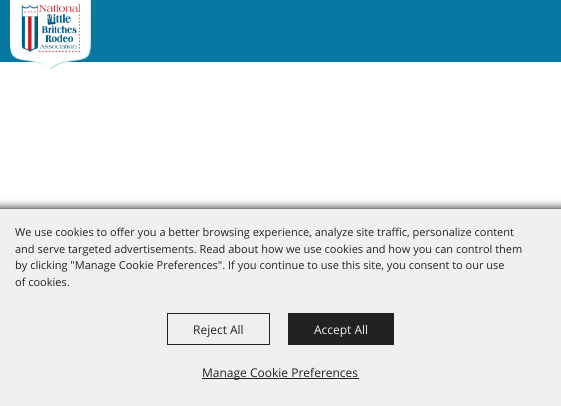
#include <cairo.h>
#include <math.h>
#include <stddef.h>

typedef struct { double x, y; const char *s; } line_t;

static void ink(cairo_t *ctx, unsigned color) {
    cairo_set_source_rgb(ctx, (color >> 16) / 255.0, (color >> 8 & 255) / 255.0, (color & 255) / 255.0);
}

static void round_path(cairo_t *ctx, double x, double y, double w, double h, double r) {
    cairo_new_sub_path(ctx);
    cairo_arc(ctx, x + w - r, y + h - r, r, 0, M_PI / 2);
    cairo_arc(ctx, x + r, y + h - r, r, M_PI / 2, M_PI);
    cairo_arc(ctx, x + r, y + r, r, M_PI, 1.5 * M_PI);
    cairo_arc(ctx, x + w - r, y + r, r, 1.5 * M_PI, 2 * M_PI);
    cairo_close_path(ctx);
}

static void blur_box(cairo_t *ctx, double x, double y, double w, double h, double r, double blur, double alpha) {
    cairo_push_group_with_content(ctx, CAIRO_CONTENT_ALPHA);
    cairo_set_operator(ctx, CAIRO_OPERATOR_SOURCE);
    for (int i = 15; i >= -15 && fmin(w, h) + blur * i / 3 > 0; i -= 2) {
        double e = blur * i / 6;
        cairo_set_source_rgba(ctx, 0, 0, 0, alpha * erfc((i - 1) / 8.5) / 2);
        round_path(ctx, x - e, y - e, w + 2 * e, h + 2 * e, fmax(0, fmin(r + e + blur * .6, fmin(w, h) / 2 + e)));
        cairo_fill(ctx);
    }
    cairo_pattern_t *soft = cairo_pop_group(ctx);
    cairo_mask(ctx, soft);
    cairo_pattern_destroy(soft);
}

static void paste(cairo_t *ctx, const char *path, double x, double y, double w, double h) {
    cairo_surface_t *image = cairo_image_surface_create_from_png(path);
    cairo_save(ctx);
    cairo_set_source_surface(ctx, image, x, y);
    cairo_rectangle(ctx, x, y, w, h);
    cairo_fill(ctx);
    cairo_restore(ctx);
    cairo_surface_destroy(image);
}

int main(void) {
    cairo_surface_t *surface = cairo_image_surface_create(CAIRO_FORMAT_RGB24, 561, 406);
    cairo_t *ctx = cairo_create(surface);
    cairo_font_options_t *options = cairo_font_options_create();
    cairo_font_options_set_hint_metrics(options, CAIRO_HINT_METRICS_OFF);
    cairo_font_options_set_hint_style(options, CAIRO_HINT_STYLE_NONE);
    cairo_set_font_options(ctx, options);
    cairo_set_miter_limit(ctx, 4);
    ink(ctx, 0xFFFFFF);
    cairo_paint(ctx);
    ink(ctx, 0x0778A2);
    cairo_rectangle(ctx, 0, 0, 561, 62);
    cairo_fill(ctx);
    paste(ctx, "media/1.png", 10, 0, 81, 69);
    ink(ctx, 0x000000);
    blur_box(ctx, -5, 209, 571, 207, 0, 5, 1);
    ink(ctx, 0xF0F0F0);
    cairo_rectangle(ctx, 0, 209, 561, 197);
    cairo_fill(ctx);
    cairo_select_font_face(ctx, "Open Sans", CAIRO_FONT_SLANT_NORMAL, CAIRO_FONT_WEIGHT_NORMAL);
    cairo_set_font_size(ctx, 11);
    ink(ctx, 0x222222);
    {
        static const line_t items[] = {
            {15, 236, "We use cookies to offer you a better browsing experience, analyze site traffic, personalize content"},
            {15, 253, "and serve targeted advertisements. Read about how we use cookies and how you can control them"},
            {15, 269, "by clicking \"Manage Cookie Preferences\". If you continue to use this site, you consent to our use"},
            {15, 286, "of cookies."},
        };
        for (size_t i = 0; i < sizeof items / sizeof *items; i++) {
            cairo_move_to(ctx, items[i].x, items[i].y);
            cairo_show_text(ctx, items[i].s);
        }
    }
    cairo_rectangle(ctx, 167.5, 313.5, 102, 31);
    cairo_set_line_width(ctx, 1);
    cairo_stroke(ctx);
    cairo_set_font_size(ctx, 12);
    cairo_move_to(ctx, 193, 334);
    cairo_show_text(ctx, "Reject All");
    cairo_rectangle(ctx, 288, 313, 106, 32);
    cairo_fill(ctx);
    ink(ctx, 0xF0F0F0);
    cairo_move_to(ctx, 314, 334);
    cairo_show_text(ctx, "Accept All");
    ink(ctx, 0x222222);
    cairo_rectangle(ctx, 202, 378, 157, 1);
    cairo_fill(ctx);
    cairo_move_to(ctx, 202, 377);
    cairo_show_text(ctx, "Manage Cookie Preferences");
    cairo_surface_write_to_png(surface, "image.png");
    cairo_font_options_destroy(options);
    cairo_destroy(ctx);
    cairo_surface_destroy(surface);
    return 0;
}
